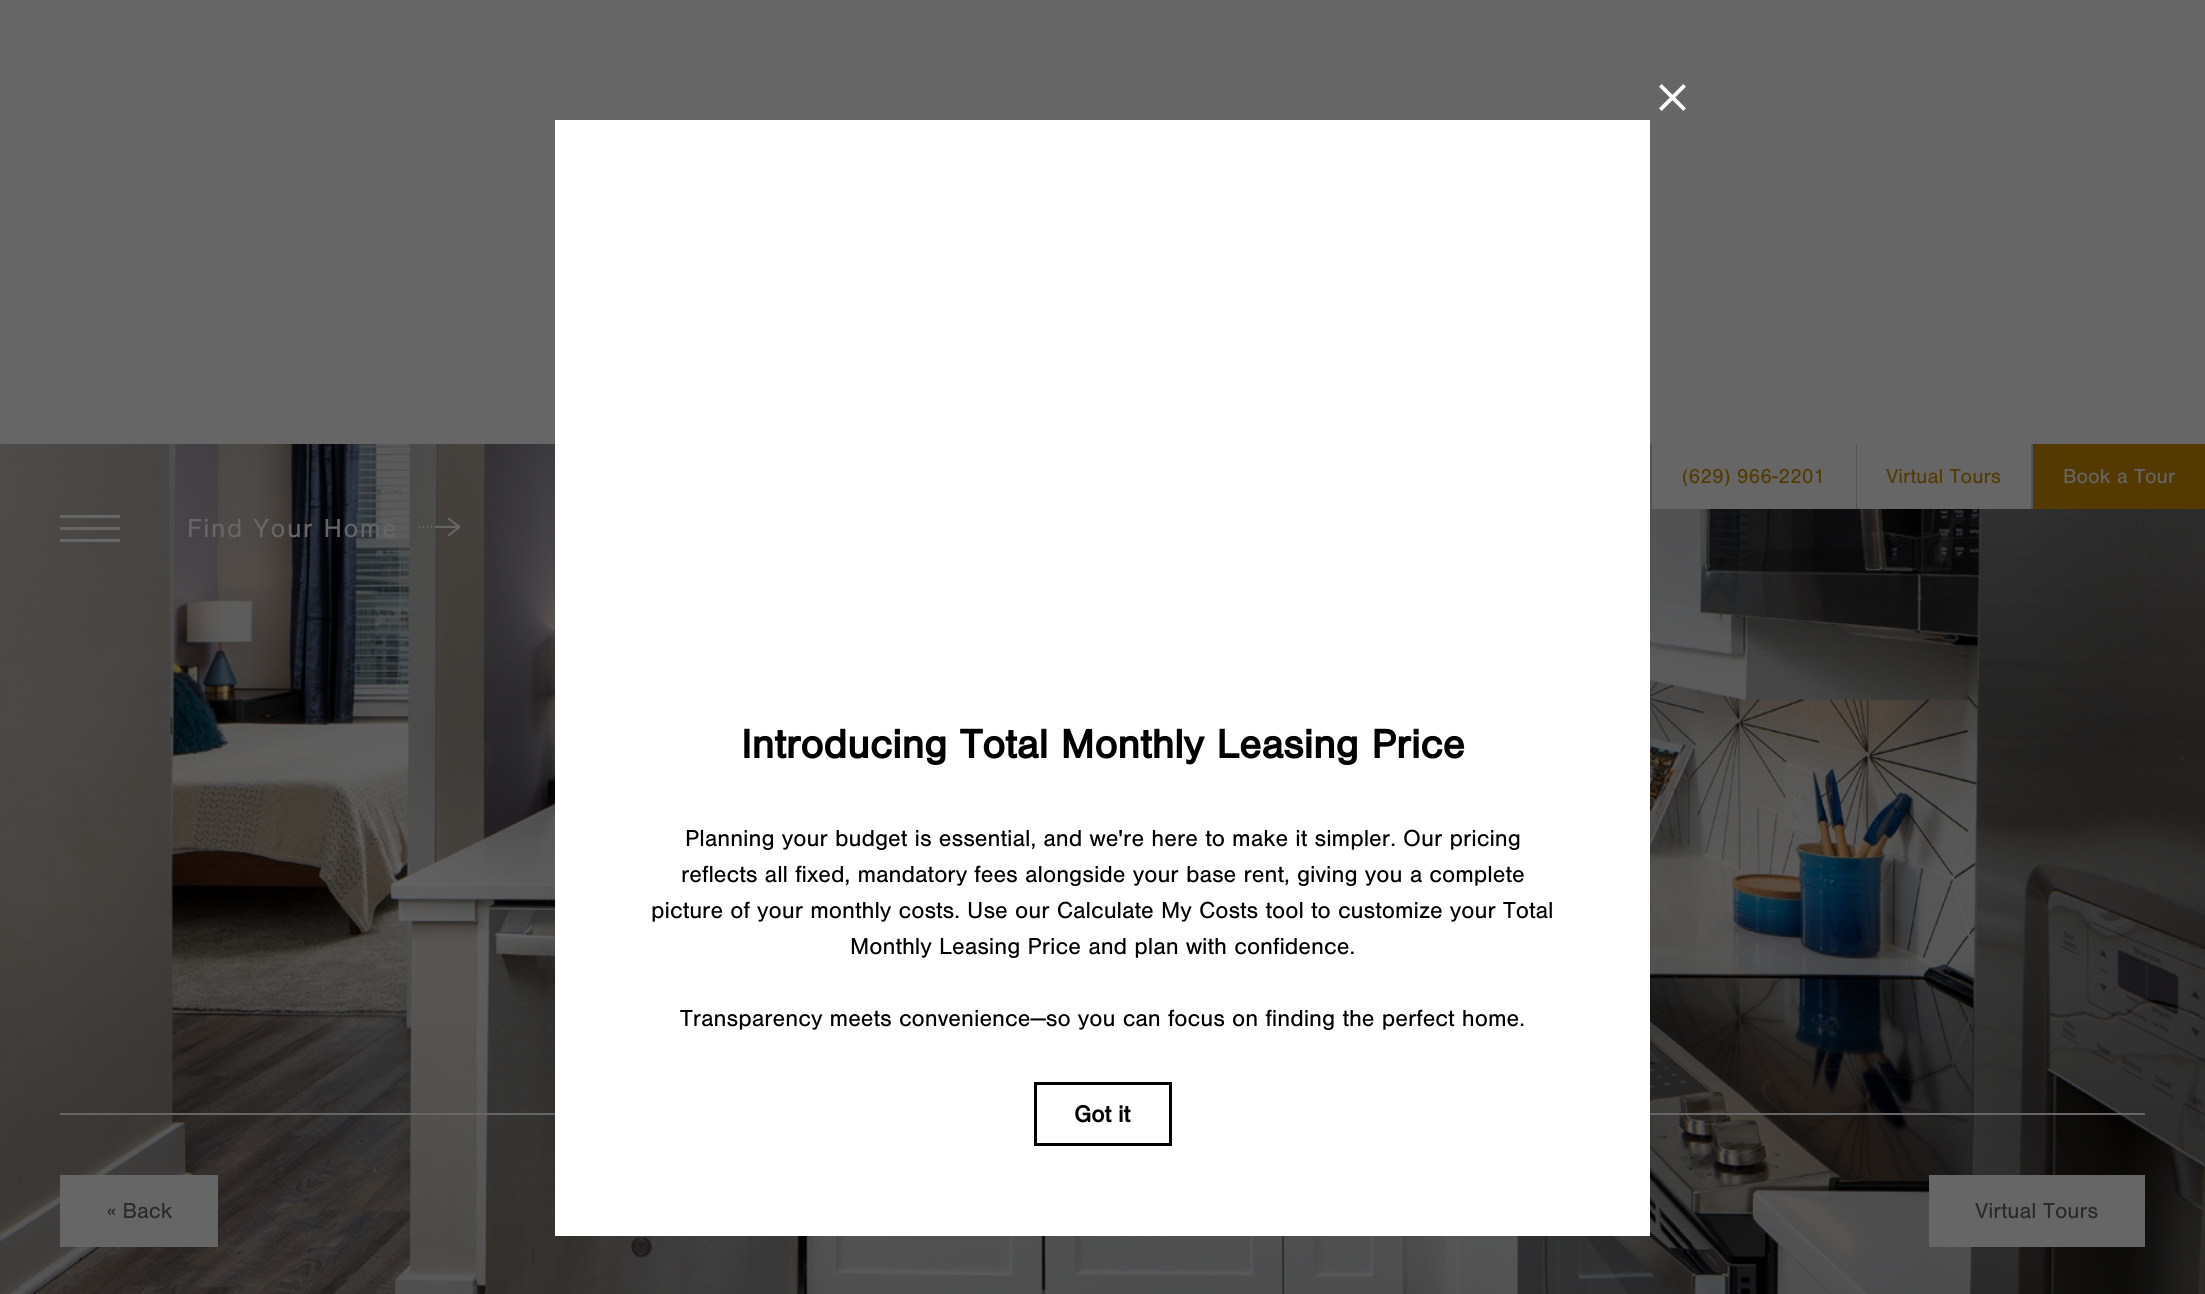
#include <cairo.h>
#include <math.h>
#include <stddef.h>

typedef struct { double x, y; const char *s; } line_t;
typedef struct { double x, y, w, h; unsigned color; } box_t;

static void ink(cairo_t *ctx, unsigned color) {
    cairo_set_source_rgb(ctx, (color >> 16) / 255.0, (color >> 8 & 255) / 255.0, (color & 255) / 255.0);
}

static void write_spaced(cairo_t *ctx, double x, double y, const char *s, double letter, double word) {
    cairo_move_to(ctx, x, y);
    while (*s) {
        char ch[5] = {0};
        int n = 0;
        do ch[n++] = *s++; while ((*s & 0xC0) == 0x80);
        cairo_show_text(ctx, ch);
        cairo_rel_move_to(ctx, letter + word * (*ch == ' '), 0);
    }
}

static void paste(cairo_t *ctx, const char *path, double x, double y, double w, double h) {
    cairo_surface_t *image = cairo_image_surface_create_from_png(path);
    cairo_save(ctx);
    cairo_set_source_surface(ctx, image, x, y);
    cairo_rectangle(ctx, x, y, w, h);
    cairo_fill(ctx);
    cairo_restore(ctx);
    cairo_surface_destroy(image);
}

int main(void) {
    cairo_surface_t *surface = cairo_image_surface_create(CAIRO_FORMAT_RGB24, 2205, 1294);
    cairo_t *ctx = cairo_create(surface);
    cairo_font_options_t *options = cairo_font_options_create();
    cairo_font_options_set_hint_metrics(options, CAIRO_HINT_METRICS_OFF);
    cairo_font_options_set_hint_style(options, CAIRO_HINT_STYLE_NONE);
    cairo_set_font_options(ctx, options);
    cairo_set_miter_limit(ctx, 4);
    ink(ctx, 0x666666);
    cairo_paint(ctx);
    paste(ctx, "media/2.png", 0, 444, 2205, 850);
    ink(ctx, 0x4D555C);
    cairo_rectangle(ctx, 1650, 444, 2, 65);
    cairo_fill(ctx);
    ink(ctx, 0x666666);
    cairo_rectangle(ctx, 1652, 444, 379, 65);
    cairo_fill(ctx);
    cairo_set_source_rgba(ctx, 0.075, 0.18, 0.267, 0.3);
    cairo_rectangle(ctx, 1856, 444, 1, 65);
    cairo_fill(ctx);
    cairo_select_font_face(ctx, "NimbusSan", CAIRO_FONT_SLANT_NORMAL, CAIRO_FONT_WEIGHT_NORMAL);
    cairo_set_font_size(ctx, 21);
    ink(ctx, 0x543A00);
    cairo_move_to(ctx, 1682, 483);
    cairo_show_text(ctx, "(629) 966-2201");
    ink(ctx, 0x4D555C);
    cairo_rectangle(ctx, 2031, 444, 2, 65);
    cairo_fill(ctx);
    ink(ctx, 0x543A00);
    cairo_move_to(ctx, 1886, 483);
    cairo_show_text(ctx, "Virtual Tours");
    cairo_rectangle(ctx, 2033, 444, 172, 65);
    cairo_fill(ctx);
    ink(ctx, 0x666666);
    cairo_move_to(ctx, 2063, 483);
    cairo_show_text(ctx, "Book a Tour");
    {
        static const box_t items[] = {
            {60, 515, 60, 3, 0x666666},
            {60, 527, 60, 3, 0x666666},
            {60, 539, 60, 3, 0x666666},
        };
        for (size_t i = 0; i < sizeof items / sizeof *items; i++) {
            ink(ctx, items[i].color);
            cairo_rectangle(ctx, items[i].x, items[i].y, items[i].w, items[i].h);
            cairo_fill(ctx);
        }
    }
    cairo_set_font_size(ctx, 27);
    write_spaced(ctx, 187, 537, "Find Your Home", 1.5, 0);
    paste(ctx, "media/1.png", 419, 518, 42, 18);
    cairo_rectangle(ctx, 60, 1113, 2085, 2);
    cairo_fill(ctx);
    cairo_rectangle(ctx, 60, 1175, 158, 72);
    cairo_fill(ctx);
    cairo_set_font_size(ctx, 22.5);
    ink(ctx, 0x292929);
    cairo_move_to(ctx, 107, 1218);
    cairo_show_text(ctx, "« Back");
    ink(ctx, 0x666666);
    cairo_rectangle(ctx, 1929, 1175, 216, 72);
    cairo_fill(ctx);
    ink(ctx, 0x292929);
    cairo_move_to(ctx, 1975, 1218);
    cairo_show_text(ctx, "Virtual Tours");
    ink(ctx, 0xFFFFFF);
    cairo_rectangle(ctx, 555, 120, 1095, 1116);
    cairo_fill(ctx);
    paste(ctx, "media/3.png", 1659, 84, 27, 27);
    cairo_select_font_face(ctx, "NimbusSan", CAIRO_FONT_SLANT_NORMAL, CAIRO_FONT_WEIGHT_BOLD);
    cairo_set_font_size(ctx, 42);
    ink(ctx, 0x000000);
    cairo_move_to(ctx, 741, 758);
    cairo_show_text(ctx, "Introducing Total Monthly Leasing Price");
    cairo_select_font_face(ctx, "NimbusSan", CAIRO_FONT_SLANT_NORMAL, CAIRO_FONT_WEIGHT_NORMAL);
    cairo_set_font_size(ctx, 24);
    {
        static const line_t items[] = {
            {685, 846, "Planning your budget is essential, and we're here to make it simpler. Our pricing"},
            {681, 882, "reflects all fixed, mandatory fees alongside your base rent, giving you a complete"},
            {651, 918, "picture of your monthly costs. Use our Calculate My Costs tool to customize your Total"},
            {850, 954, "Monthly Leasing Price and plan with confidence."},
            {680, 1026, "Transparency meets convenience—so you can focus on finding the perfect home."},
        };
        for (size_t i = 0; i < sizeof items / sizeof *items; i++) {
            cairo_move_to(ctx, items[i].x, items[i].y);
            cairo_show_text(ctx, items[i].s);
        }
    }
    cairo_rectangle(ctx, 1035.5, 1083.5, 135, 61);
    cairo_set_line_width(ctx, 3);
    cairo_stroke(ctx);
    cairo_select_font_face(ctx, "NimbusSan", CAIRO_FONT_SLANT_NORMAL, CAIRO_FONT_WEIGHT_BOLD);
    cairo_move_to(ctx, 1074, 1122);
    cairo_show_text(ctx, "Got it");
    cairo_surface_write_to_png(surface, "image.png");
    cairo_font_options_destroy(options);
    cairo_destroy(ctx);
    cairo_surface_destroy(surface);
    return 0;
}
